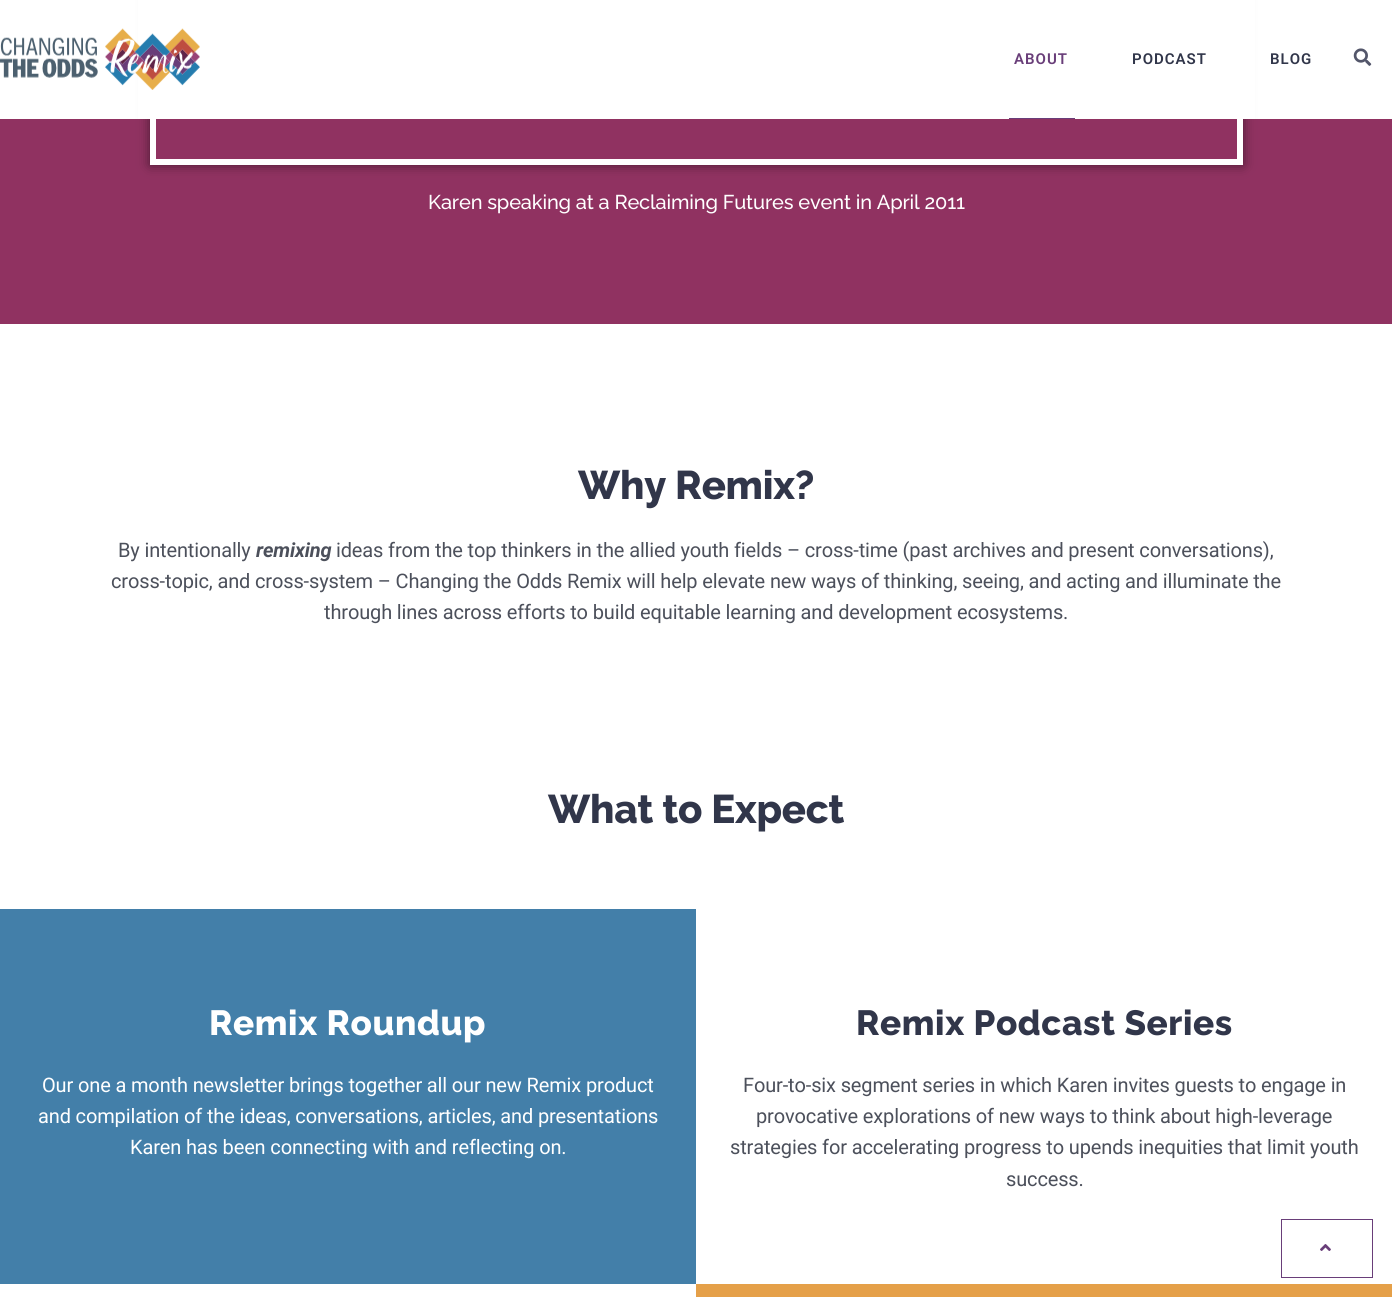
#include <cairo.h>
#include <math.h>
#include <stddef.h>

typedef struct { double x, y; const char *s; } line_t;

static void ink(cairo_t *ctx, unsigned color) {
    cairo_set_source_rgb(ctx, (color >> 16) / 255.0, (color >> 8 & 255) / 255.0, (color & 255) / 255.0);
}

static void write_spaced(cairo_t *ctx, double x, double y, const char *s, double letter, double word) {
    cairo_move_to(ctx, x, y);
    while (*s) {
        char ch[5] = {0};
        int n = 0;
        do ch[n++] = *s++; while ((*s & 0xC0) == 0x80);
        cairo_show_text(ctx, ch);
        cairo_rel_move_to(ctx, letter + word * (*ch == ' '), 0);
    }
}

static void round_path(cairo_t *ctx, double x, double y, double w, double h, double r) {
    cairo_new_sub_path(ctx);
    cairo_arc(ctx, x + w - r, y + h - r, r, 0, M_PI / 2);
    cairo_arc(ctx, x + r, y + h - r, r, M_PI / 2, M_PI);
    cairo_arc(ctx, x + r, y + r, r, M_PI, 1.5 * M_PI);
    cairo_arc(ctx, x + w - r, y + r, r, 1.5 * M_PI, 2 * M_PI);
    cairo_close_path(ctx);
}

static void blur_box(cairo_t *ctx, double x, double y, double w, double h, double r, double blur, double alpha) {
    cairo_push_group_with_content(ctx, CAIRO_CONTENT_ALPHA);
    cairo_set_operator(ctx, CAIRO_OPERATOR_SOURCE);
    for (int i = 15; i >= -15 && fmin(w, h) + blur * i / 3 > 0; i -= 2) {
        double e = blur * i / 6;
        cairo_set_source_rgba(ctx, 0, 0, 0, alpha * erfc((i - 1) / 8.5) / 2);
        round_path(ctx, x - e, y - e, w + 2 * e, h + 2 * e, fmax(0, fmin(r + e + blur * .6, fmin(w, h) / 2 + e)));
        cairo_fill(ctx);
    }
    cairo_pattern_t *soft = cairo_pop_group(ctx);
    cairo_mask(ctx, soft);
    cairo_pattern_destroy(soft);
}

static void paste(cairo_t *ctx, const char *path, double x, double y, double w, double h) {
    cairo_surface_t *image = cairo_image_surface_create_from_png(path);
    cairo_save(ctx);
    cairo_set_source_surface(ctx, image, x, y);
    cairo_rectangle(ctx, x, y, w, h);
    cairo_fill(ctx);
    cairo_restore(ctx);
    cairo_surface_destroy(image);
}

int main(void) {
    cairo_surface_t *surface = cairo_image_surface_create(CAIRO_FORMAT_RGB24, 1392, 1297);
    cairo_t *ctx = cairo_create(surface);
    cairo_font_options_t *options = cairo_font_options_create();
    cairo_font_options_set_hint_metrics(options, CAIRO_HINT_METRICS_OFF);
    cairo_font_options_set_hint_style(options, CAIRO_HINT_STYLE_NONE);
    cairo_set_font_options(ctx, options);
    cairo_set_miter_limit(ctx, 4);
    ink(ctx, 0xFFFFFF);
    cairo_paint(ctx);
    ink(ctx, 0x903261);
    cairo_rectangle(ctx, 0, 119, 1392, 205);
    cairo_fill(ctx);
    cairo_save(ctx);
    cairo_set_fill_rule(ctx, CAIRO_FILL_RULE_EVEN_ODD);
    cairo_new_path(ctx);
    cairo_move_to(ctx, 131, 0);
    cairo_line_to(ctx, 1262, 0);
    cairo_line_to(ctx, 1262, 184);
    cairo_line_to(ctx, 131, 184);
    cairo_close_path(ctx);
    cairo_move_to(ctx, 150, -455);
    cairo_line_to(ctx, 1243, -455);
    cairo_line_to(ctx, 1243, 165);
    cairo_line_to(ctx, 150, 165);
    cairo_close_path(ctx);
    cairo_clip(ctx);
    ink(ctx, 0x000000);
    blur_box(ctx, 150, -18, 1093, 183, 0, 6, 0.5);
    cairo_restore(ctx);
    cairo_rectangle(ctx, 153, -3, 1087, 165);
    ink(ctx, 0xFFFFFF);
    cairo_set_line_width(ctx, 6);
    cairo_stroke(ctx);
    cairo_rectangle(ctx, 138, 0, 1117, 119);
    cairo_fill(ctx);
    paste(ctx, "media/1.png", 0, 28, 200, 62);
    ink(ctx, 0x693E79);
    cairo_rectangle(ctx, 1009, 118, 66, 1);
    cairo_fill(ctx);
    cairo_select_font_face(ctx, "Roboto SemiBold", CAIRO_FONT_SLANT_NORMAL, CAIRO_FONT_WEIGHT_NORMAL);
    cairo_set_font_size(ctx, 15);
    write_spaced(ctx, 1014, 64, "ABOUT", 1, 0);
    ink(ctx, 0x31364A);
    write_spaced(ctx, 1132, 64, "PODCAST", 1, 0);
    write_spaced(ctx, 1270, 64, "BLOG", 1, 0);
    paste(ctx, "media/2.png", 1353, 48, 19, 18);
    cairo_select_font_face(ctx, "Raleway Medium", CAIRO_FONT_SLANT_NORMAL, CAIRO_FONT_WEIGHT_NORMAL);
    cairo_set_font_size(ctx, 20);
    ink(ctx, 0xFFFFFF);
    write_spaced(ctx, 428, 209, "Karen speaking at a Reclaiming Futures event in April 2011", -0.14, 0);
    cairo_select_font_face(ctx, "Raleway Thin", CAIRO_FONT_SLANT_NORMAL, CAIRO_FONT_WEIGHT_NORMAL);
    cairo_set_font_size(ctx, 40);
    ink(ctx, 0x31364A);
    write_spaced(ctx, 578, 499, "Why Remix?", -0.25, 0);
    cairo_select_font_face(ctx, "Roboto", CAIRO_FONT_SLANT_NORMAL, CAIRO_FONT_WEIGHT_NORMAL);
    cairo_set_font_size(ctx, 20);
    ink(ctx, 0x4C505B);
    write_spaced(ctx, 118, 557, "By intentionally", -0.14, 0);
    cairo_select_font_face(ctx, "Roboto", CAIRO_FONT_SLANT_ITALIC, CAIRO_FONT_WEIGHT_BOLD);
    write_spaced(ctx, 256, 557, "remixing", -0.14, 0);
    cairo_select_font_face(ctx, "Roboto", CAIRO_FONT_SLANT_NORMAL, CAIRO_FONT_WEIGHT_NORMAL);
    {
        static const line_t items[] = {
            {336, 557, "ideas from the top thinkers in the allied youth fields – cross-time (past archives and present conversations),"},
            {111, 588, "cross-topic, and cross-system – Changing the Odds Remix will help elevate new ways of thinking, seeing, and acting and illuminate the"},
            {324, 619, "through lines across efforts to build equitable learning and development ecosystems."},
        };
        for (size_t i = 0; i < sizeof items / sizeof *items; i++) {
            write_spaced(ctx, items[i].x, items[i].y, items[i].s, -0.14, 0);
        }
    }
    cairo_select_font_face(ctx, "Raleway Thin", CAIRO_FONT_SLANT_NORMAL, CAIRO_FONT_WEIGHT_NORMAL);
    cairo_set_font_size(ctx, 40);
    ink(ctx, 0x31364A);
    write_spaced(ctx, 548, 823, "What to Expect", -0.25, 0);
    ink(ctx, 0x437FA9);
    cairo_rectangle(ctx, 0, 909, 696, 375);
    cairo_fill(ctx);
    cairo_set_font_size(ctx, 35);
    ink(ctx, 0xFFFFFF);
    write_spaced(ctx, 209, 1035, "Remix Roundup", 0.6, 0);
    cairo_select_font_face(ctx, "Roboto", CAIRO_FONT_SLANT_NORMAL, CAIRO_FONT_WEIGHT_NORMAL);
    cairo_set_font_size(ctx, 20);
    {
        static const line_t items[] = {
            {42, 1092, "Our one a month newsletter brings together all our new Remix product"},
            {38, 1123, "and compilation of the ideas, conversations, articles, and presentations"},
            {130, 1154, "Karen has been connecting with and reflecting on."},
        };
        for (size_t i = 0; i < sizeof items / sizeof *items; i++) {
            write_spaced(ctx, items[i].x, items[i].y, items[i].s, -0.14, 0);
        }
    }
    cairo_select_font_face(ctx, "Raleway Thin", CAIRO_FONT_SLANT_NORMAL, CAIRO_FONT_WEIGHT_NORMAL);
    cairo_set_font_size(ctx, 35);
    ink(ctx, 0x31364A);
    write_spaced(ctx, 856, 1035, "Remix Podcast Series", 0.6, 0);
    cairo_select_font_face(ctx, "Roboto", CAIRO_FONT_SLANT_NORMAL, CAIRO_FONT_WEIGHT_NORMAL);
    cairo_set_font_size(ctx, 20);
    ink(ctx, 0x4C505B);
    {
        static const line_t items[] = {
            {743, 1092, "Four-to-six segment series in which Karen invites guests to engage in"},
            {756, 1123, "provocative explorations of new ways to think about high-leverage"},
            {730, 1154, "strategies for accelerating progress to upends inequities that limit youth"},
            {1006, 1186, "success."},
        };
        for (size_t i = 0; i < sizeof items / sizeof *items; i++) {
            write_spaced(ctx, items[i].x, items[i].y, items[i].s, -0.14, 0);
        }
    }
    ink(ctx, 0xE5A049);
    cairo_rectangle(ctx, 696, 1284, 696, 13);
    cairo_fill(ctx);
    cairo_rectangle(ctx, 1281.5, 1219.5, 91, 58);
    ink(ctx, 0x693E79);
    cairo_set_line_width(ctx, 1);
    cairo_stroke(ctx);
    paste(ctx, "media/3.png", 1320, 1244, 11, 7);
    cairo_surface_write_to_png(surface, "image.png");
    cairo_font_options_destroy(options);
    cairo_destroy(ctx);
    cairo_surface_destroy(surface);
    return 0;
}
